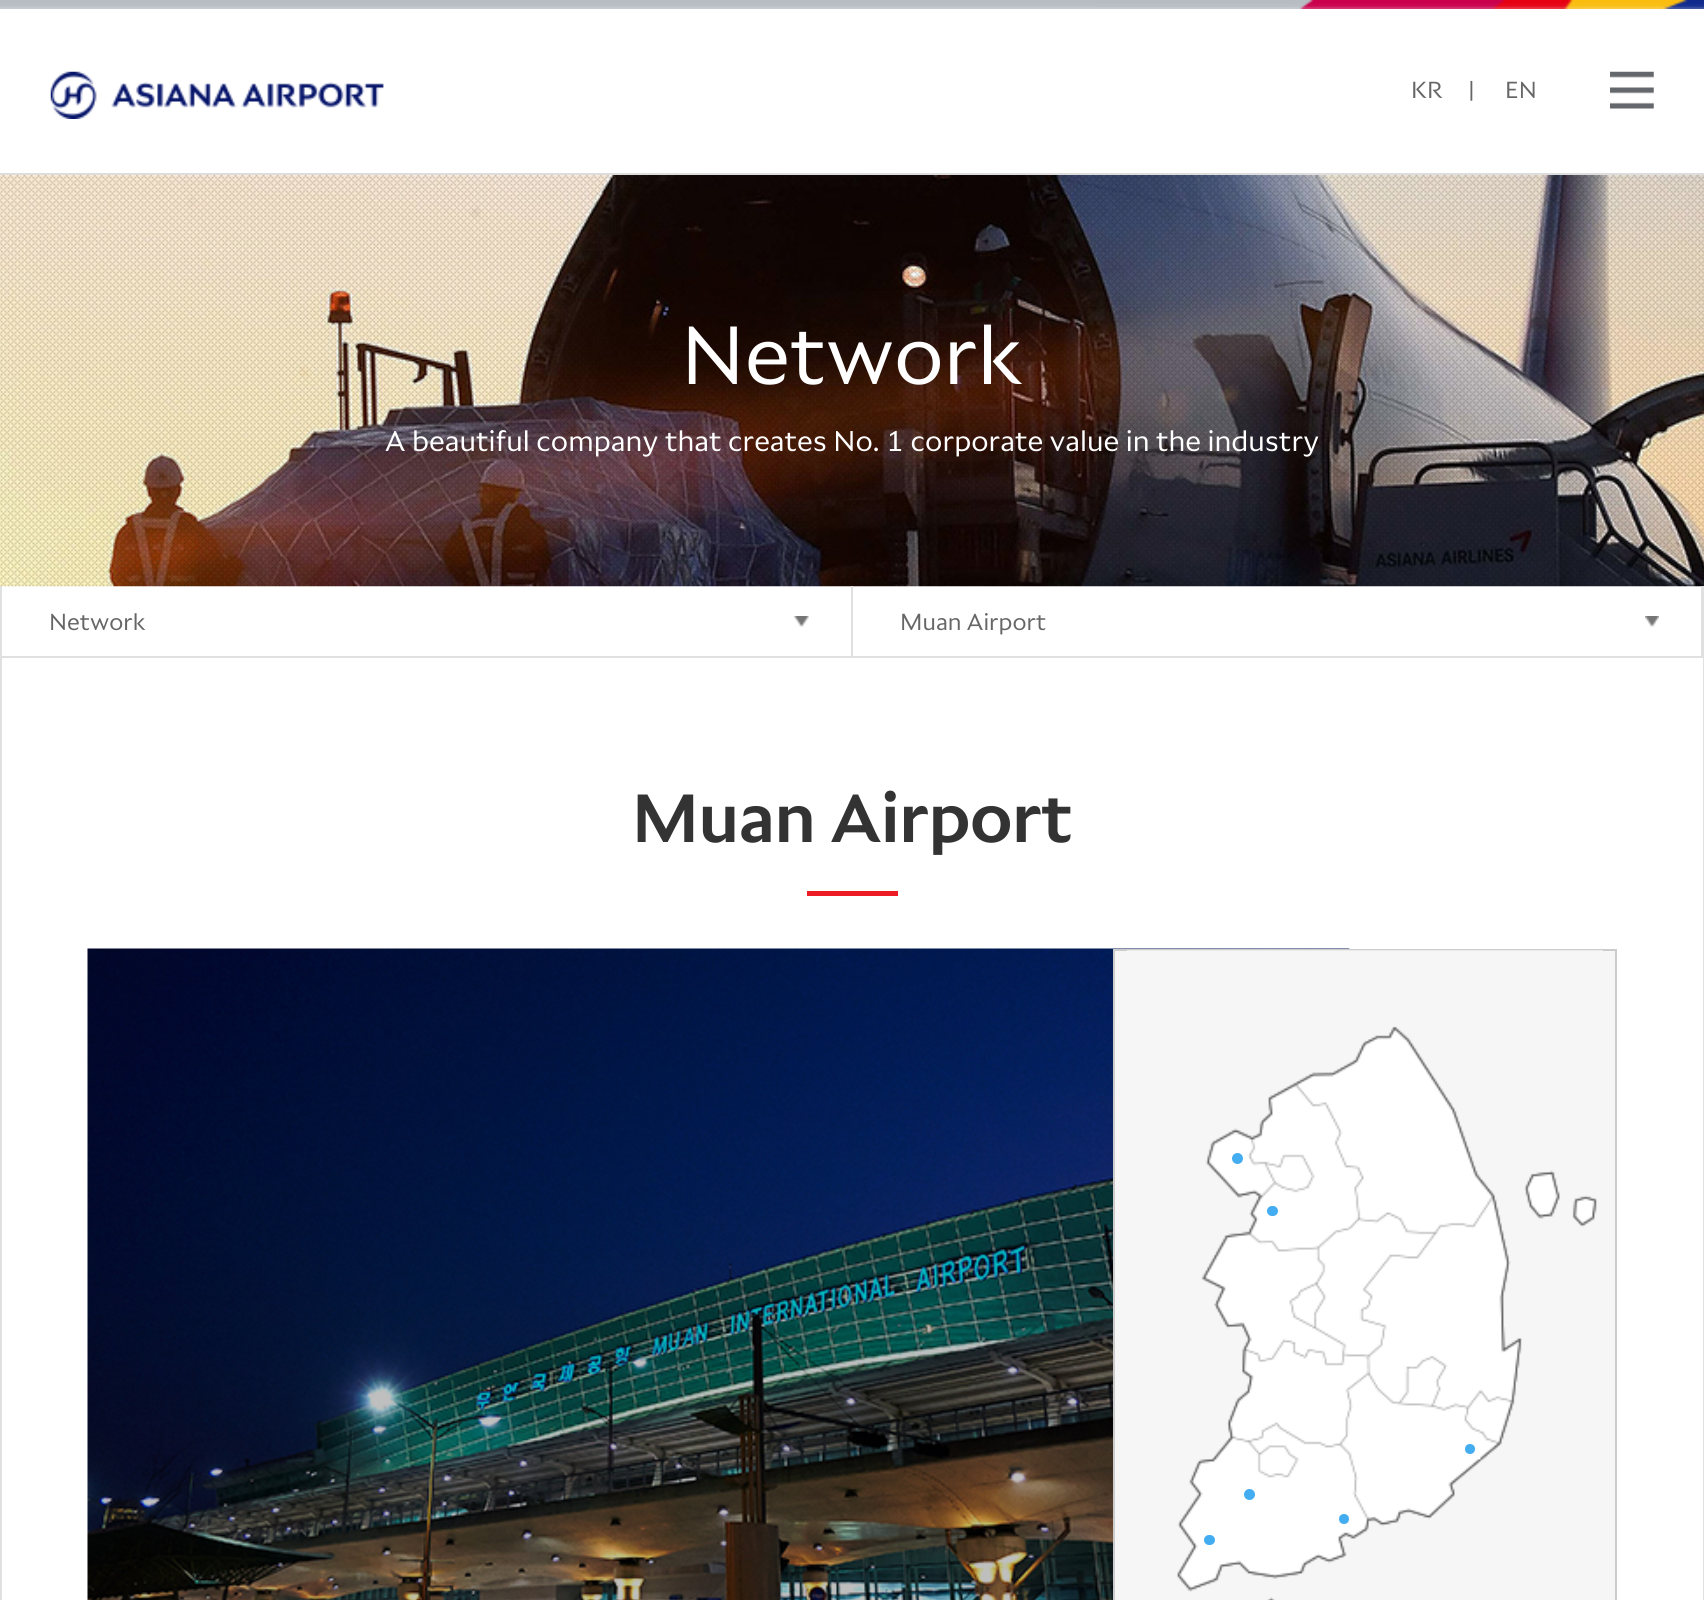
#include <cairo.h>
#include <math.h>
#include <stddef.h>

typedef struct { double x, y; const char *s; } line_t;
typedef struct { double x, y, w, h; unsigned color; } box_t;

static void ink(cairo_t *ctx, unsigned color) {
    cairo_set_source_rgb(ctx, (color >> 16) / 255.0, (color >> 8 & 255) / 255.0, (color & 255) / 255.0);
}

static void round_path(cairo_t *ctx, double x, double y, double w, double h, double r) {
    cairo_new_sub_path(ctx);
    cairo_arc(ctx, x + w - r, y + h - r, r, 0, M_PI / 2);
    cairo_arc(ctx, x + r, y + h - r, r, M_PI / 2, M_PI);
    cairo_arc(ctx, x + r, y + r, r, M_PI, 1.5 * M_PI);
    cairo_arc(ctx, x + w - r, y + r, r, 1.5 * M_PI, 2 * M_PI);
    cairo_close_path(ctx);
}

static void paste(cairo_t *ctx, const char *path, double x, double y, double w, double h) {
    cairo_surface_t *image = cairo_image_surface_create_from_png(path);
    cairo_save(ctx);
    cairo_set_source_surface(ctx, image, x, y);
    cairo_rectangle(ctx, x, y, w, h);
    cairo_fill(ctx);
    cairo_restore(ctx);
    cairo_surface_destroy(image);
}

int main(void) {
    cairo_surface_t *surface = cairo_image_surface_create(CAIRO_FORMAT_RGB24, 1704, 1600);
    cairo_t *ctx = cairo_create(surface);
    cairo_font_options_t *options = cairo_font_options_create();
    cairo_font_options_set_hint_metrics(options, CAIRO_HINT_METRICS_OFF);
    cairo_font_options_set_hint_style(options, CAIRO_HINT_STYLE_NONE);
    cairo_set_font_options(ctx, options);
    cairo_set_miter_limit(ctx, 4);
    ink(ctx, 0xFFFFFF);
    cairo_paint(ctx);
    ink(ctx, 0xDDDDDD);
    cairo_rectangle(ctx, 0, 173, 1704, 2);
    cairo_fill(ctx);
    paste(ctx, "media/1.png", 0, 0, 1704, 9);
    paste(ctx, "media/2.png", 50, 71, 334, 48);
    cairo_select_font_face(ctx, "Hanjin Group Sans", CAIRO_FONT_SLANT_NORMAL, CAIRO_FONT_WEIGHT_NORMAL);
    cairo_set_font_size(ctx, 22.75);
    ink(ctx, 0x666666);
    {
        static const line_t items[] = {
            {1411, 98, "KR"},
            {1469, 98, "|"},
            {1505, 98, "EN"},
        };
        for (size_t i = 0; i < sizeof items / sizeof *items; i++) {
            cairo_move_to(ctx, items[i].x, items[i].y);
            cairo_show_text(ctx, items[i].s);
        }
    }
    paste(ctx, "media/3.png", 1610, 71, 44, 38);
    paste(ctx, "media/4.png", 0, 175, 1704, 412);
    cairo_set_font_size(ctx, 80.5);
    ink(ctx, 0xFFFFFF);
    cairo_move_to(ctx, 681, 384);
    cairo_show_text(ctx, "Network");
    cairo_set_font_size(ctx, 28);
    cairo_move_to(ctx, 385, 451);
    cairo_show_text(ctx, "A beautiful company that creates No. 1 corporate value in the industry");
    {
        static const box_t items[] = {
            {1703, 586, 1, 1014, 0xE0E0E0},
            {0, 586, 2, 1014, 0xE0E0E0},
            {2, 656, 1701, 2, 0xE0E0E0},
            {851, 586, 2, 70, 0xE0E0E0},
        };
        for (size_t i = 0; i < sizeof items / sizeof *items; i++) {
            ink(ctx, items[i].color);
            cairo_rectangle(ctx, items[i].x, items[i].y, items[i].w, items[i].h);
            cairo_fill(ctx);
        }
    }
    paste(ctx, "media/5.png", 794, 616, 15, 11);
    cairo_set_font_size(ctx, 22.75);
    ink(ctx, 0x666666);
    cairo_move_to(ctx, 49, 630);
    cairo_show_text(ctx, "Network");
    ink(ctx, 0xE0E0E0);
    cairo_rectangle(ctx, 1701, 586, 2, 70);
    cairo_fill(ctx);
    paste(ctx, "media/6.png", 1645, 616, 14, 11);
    ink(ctx, 0x666666);
    cairo_move_to(ctx, 900, 630);
    cairo_show_text(ctx, "Muan Airport");
    cairo_select_font_face(ctx, "Hanjin Group Sans", CAIRO_FONT_SLANT_NORMAL, CAIRO_FONT_WEIGHT_BOLD);
    cairo_set_font_size(ctx, 66.5);
    ink(ctx, 0x333333);
    cairo_move_to(ctx, 632, 842);
    cairo_show_text(ctx, "Muan Airport");
    ink(ctx, 0xED1B24);
    cairo_rectangle(ctx, 807, 891, 91, 5);
    cairo_fill(ctx);
    paste(ctx, "media/7.png", 87, 948, 1263, 652);
    ink(ctx, 0xF6F6F6);
    cairo_rectangle(ctx, 1114, 950, 502, 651);
    cairo_fill_preserve(ctx);
    ink(ctx, 0xCCCCCC);
    cairo_stroke(ctx);
    paste(ctx, "media/8.png", 1127, 950, 476, 650);
    ink(ctx, 0x44ACF0);
    cairo_arc(ctx, 1237.5, 1158.5, 5.5, 0, 2 * M_PI);
    cairo_fill(ctx);
    round_path(ctx, 1267, 1206, 11, 10, 5);
    cairo_fill(ctx);
    cairo_arc(ctx, 1470, 1449, 5, 0, 2 * M_PI);
    cairo_fill(ctx);
    cairo_arc(ctx, 1249.5, 1494.5, 5.5, 0, 2 * M_PI);
    cairo_fill(ctx);
    cairo_arc(ctx, 1344, 1519, 5, 0, 2 * M_PI);
    cairo_fill(ctx);
    round_path(ctx, 1204, 1535, 11, 10, 5);
    cairo_fill(ctx);
    cairo_surface_write_to_png(surface, "image.png");
    cairo_font_options_destroy(options);
    cairo_destroy(ctx);
    cairo_surface_destroy(surface);
    return 0;
}
